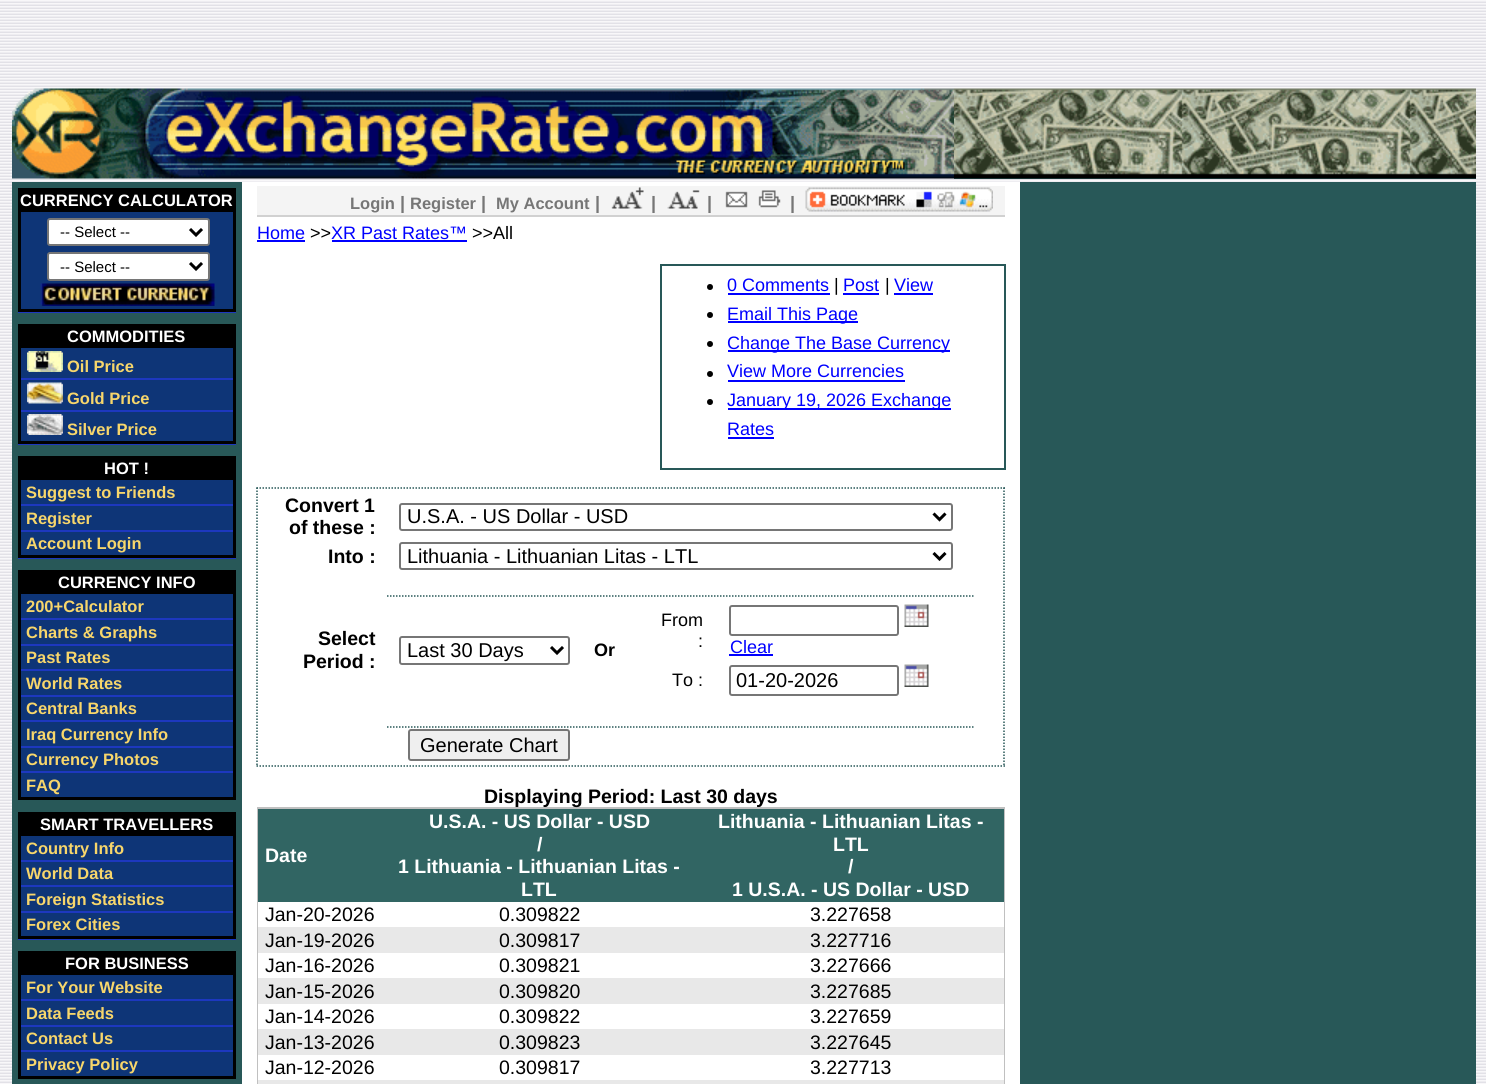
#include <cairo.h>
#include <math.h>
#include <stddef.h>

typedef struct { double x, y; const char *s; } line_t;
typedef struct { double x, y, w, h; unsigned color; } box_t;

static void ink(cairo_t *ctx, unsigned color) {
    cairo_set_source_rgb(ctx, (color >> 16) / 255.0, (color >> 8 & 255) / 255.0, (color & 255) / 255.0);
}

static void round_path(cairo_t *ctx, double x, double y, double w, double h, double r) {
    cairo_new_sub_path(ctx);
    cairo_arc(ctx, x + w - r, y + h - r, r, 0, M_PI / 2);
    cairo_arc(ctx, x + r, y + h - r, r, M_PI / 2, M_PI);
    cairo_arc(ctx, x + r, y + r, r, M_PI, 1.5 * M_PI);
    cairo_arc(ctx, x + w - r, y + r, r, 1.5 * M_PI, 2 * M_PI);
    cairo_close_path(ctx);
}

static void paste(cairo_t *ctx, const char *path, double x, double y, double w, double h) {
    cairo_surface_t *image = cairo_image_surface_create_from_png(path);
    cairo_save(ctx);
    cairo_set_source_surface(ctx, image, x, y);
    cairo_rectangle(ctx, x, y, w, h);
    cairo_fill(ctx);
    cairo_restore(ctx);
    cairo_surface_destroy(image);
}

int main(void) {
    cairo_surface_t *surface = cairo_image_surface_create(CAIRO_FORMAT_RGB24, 1486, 1084);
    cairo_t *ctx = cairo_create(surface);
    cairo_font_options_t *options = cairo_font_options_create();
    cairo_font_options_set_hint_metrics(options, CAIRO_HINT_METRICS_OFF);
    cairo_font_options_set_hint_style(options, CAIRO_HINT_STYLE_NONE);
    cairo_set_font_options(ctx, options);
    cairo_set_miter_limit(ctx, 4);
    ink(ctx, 0xFFFFFF);
    cairo_paint(ctx);
    paste(ctx, "media/1.png", 0, 0, 1486, 1084);
    paste(ctx, "media/2.png", 12, 88, 942, 91);
    ink(ctx, 0x316363);
    cairo_rectangle(ctx, 954, 178, 522, 1);
    cairo_fill(ctx);
    paste(ctx, "media/3.png", 954, 88, 522, 91);
    {
        static const box_t items[] = {
            {12, 182, 230, 902, 0x285858},
            {18, 188, 218, 3, 0x000000},
            {233, 188, 3, 124, 0x000000},
            {18, 309, 218, 3, 0x000000},
            {18, 188, 3, 124, 0x000000},
            {21, 191, 212, 21, 0x000000},
        };
        for (size_t i = 0; i < sizeof items / sizeof *items; i++) {
            ink(ctx, items[i].color);
            cairo_rectangle(ctx, items[i].x, items[i].y, items[i].w, items[i].h);
            cairo_fill(ctx);
        }
    }
    cairo_select_font_face(ctx, "Liberation Sans", CAIRO_FONT_SLANT_NORMAL, CAIRO_FONT_WEIGHT_BOLD);
    cairo_set_font_size(ctx, 16.5);
    ink(ctx, 0xFFFFFF);
    cairo_move_to(ctx, 20, 206);
    cairo_show_text(ctx, "CURRENCY CALCULATOR");
    ink(ctx, 0x0E3577);
    cairo_rectangle(ctx, 21, 212, 212, 97);
    cairo_fill(ctx);
    ink(ctx, 0x1D38BF);
    cairo_rectangle(ctx, 18, 312, 218, 1);
    cairo_fill(ctx);
    ink(ctx, 0xFFFFFF);
    round_path(ctx, 48, 219, 161, 26, 2);
    cairo_fill_preserve(ctx);
    ink(ctx, 0x767676);
    cairo_stroke(ctx);
    cairo_new_path(ctx);
    cairo_move_to(ctx, 190, 229);
    cairo_line_to(ctx, 196, 235);
    cairo_line_to(ctx, 202, 229);
    ink(ctx, 0x000000);
    cairo_set_line_width(ctx, 3);
    cairo_stroke(ctx);
    cairo_select_font_face(ctx, "Liberation Sans", CAIRO_FONT_SLANT_NORMAL, CAIRO_FONT_WEIGHT_NORMAL);
    cairo_set_font_size(ctx, 15);
    cairo_move_to(ctx, 60, 237);
    cairo_show_text(ctx, "-- Select --");
    ink(ctx, 0xFFFFFF);
    round_path(ctx, 48, 253, 161, 27, 2);
    cairo_fill_preserve(ctx);
    ink(ctx, 0x767676);
    cairo_set_line_width(ctx, 2);
    cairo_stroke(ctx);
    cairo_new_path(ctx);
    cairo_move_to(ctx, 190, 263);
    cairo_line_to(ctx, 196, 269);
    cairo_line_to(ctx, 202, 263);
    ink(ctx, 0x000000);
    cairo_set_line_width(ctx, 3);
    cairo_stroke(ctx);
    cairo_move_to(ctx, 60, 272);
    cairo_show_text(ctx, "-- Select --");
    paste(ctx, "media/4.png", 40, 283, 176, 23);
    {
        static const box_t items[] = {
            {18, 324, 218, 3, 0x000000},
            {18, 378, 218, 2, 0x1D38BF},
            {18, 410, 218, 2, 0x1D38BF},
            {233, 324, 3, 120, 0x000000},
            {18, 441, 218, 3, 0x000000},
            {18, 324, 3, 120, 0x000000},
            {21, 327, 212, 21, 0x000000},
        };
        for (size_t i = 0; i < sizeof items / sizeof *items; i++) {
            ink(ctx, items[i].color);
            cairo_rectangle(ctx, items[i].x, items[i].y, items[i].w, items[i].h);
            cairo_fill(ctx);
        }
    }
    cairo_select_font_face(ctx, "Liberation Sans", CAIRO_FONT_SLANT_NORMAL, CAIRO_FONT_WEIGHT_BOLD);
    cairo_set_font_size(ctx, 16.5);
    ink(ctx, 0xFFFFFF);
    cairo_move_to(ctx, 67, 342);
    cairo_show_text(ctx, "COMMODITIES");
    ink(ctx, 0x0E3577);
    cairo_rectangle(ctx, 21, 348, 212, 30);
    cairo_fill(ctx);
    paste(ctx, "media/5.png", 27, 351, 36, 21);
    ink(ctx, 0xF7D66B);
    cairo_move_to(ctx, 67, 372);
    cairo_show_text(ctx, "Oil Price");
    ink(ctx, 0x0E3577);
    cairo_rectangle(ctx, 21, 380, 212, 30);
    cairo_fill(ctx);
    paste(ctx, "media/6.png", 27, 382, 36, 22);
    ink(ctx, 0xF7D66B);
    cairo_move_to(ctx, 67, 404);
    cairo_show_text(ctx, "Gold Price");
    ink(ctx, 0x0E3577);
    cairo_rectangle(ctx, 21, 412, 212, 29);
    cairo_fill(ctx);
    ink(ctx, 0x1D38BF);
    cairo_rectangle(ctx, 18, 444, 218, 1);
    cairo_fill(ctx);
    paste(ctx, "media/7.png", 27, 414, 36, 21);
    ink(ctx, 0xF7D66B);
    cairo_move_to(ctx, 67, 435);
    cairo_show_text(ctx, "Silver Price");
    {
        static const box_t items[] = {
            {18, 456, 218, 3, 0x000000},
            {18, 504, 218, 2, 0x1D38BF},
            {18, 530, 218, 2, 0x1D38BF},
            {233, 456, 3, 102, 0x000000},
            {18, 555, 218, 3, 0x000000},
            {18, 456, 3, 102, 0x000000},
            {21, 459, 212, 21, 0x000000},
        };
        for (size_t i = 0; i < sizeof items / sizeof *items; i++) {
            ink(ctx, items[i].color);
            cairo_rectangle(ctx, items[i].x, items[i].y, items[i].w, items[i].h);
            cairo_fill(ctx);
        }
    }
    ink(ctx, 0xFFFFFF);
    cairo_move_to(ctx, 104, 474);
    cairo_show_text(ctx, "HOT !");
    ink(ctx, 0x0E3577);
    cairo_rectangle(ctx, 21, 480, 212, 24);
    cairo_fill(ctx);
    ink(ctx, 0xF7D66B);
    cairo_move_to(ctx, 26, 498);
    cairo_show_text(ctx, "Suggest to Friends");
    ink(ctx, 0x0E3577);
    cairo_rectangle(ctx, 21, 506, 212, 24);
    cairo_fill(ctx);
    ink(ctx, 0xF7D66B);
    cairo_move_to(ctx, 26, 524);
    cairo_show_text(ctx, "Register");
    ink(ctx, 0x0E3577);
    cairo_rectangle(ctx, 21, 532, 212, 23);
    cairo_fill(ctx);
    ink(ctx, 0x1D38BF);
    cairo_rectangle(ctx, 18, 558, 218, 1);
    cairo_fill(ctx);
    ink(ctx, 0xF7D66B);
    cairo_move_to(ctx, 26, 549);
    cairo_show_text(ctx, "Account Login");
    {
        static const box_t items[] = {
            {18, 570, 218, 3, 0x000000},
            {18, 618, 218, 2, 0x1D38BF},
            {18, 644, 218, 2, 0x1D38BF},
            {18, 669, 218, 2, 0x1D38BF},
            {18, 695, 218, 2, 0x1D38BF},
            {18, 720, 218, 2, 0x1D38BF},
            {18, 746, 218, 2, 0x1D38BF},
            {18, 771, 218, 2, 0x1D38BF},
            {233, 570, 3, 230, 0x000000},
            {18, 797, 218, 3, 0x000000},
            {18, 570, 3, 230, 0x000000},
            {21, 573, 212, 21, 0x000000},
        };
        for (size_t i = 0; i < sizeof items / sizeof *items; i++) {
            ink(ctx, items[i].color);
            cairo_rectangle(ctx, items[i].x, items[i].y, items[i].w, items[i].h);
            cairo_fill(ctx);
        }
    }
    ink(ctx, 0xFFFFFF);
    cairo_move_to(ctx, 58, 588);
    cairo_show_text(ctx, "CURRENCY INFO");
    ink(ctx, 0x0E3577);
    cairo_rectangle(ctx, 21, 594, 212, 24);
    cairo_fill(ctx);
    ink(ctx, 0xF7D66B);
    cairo_move_to(ctx, 26, 612);
    cairo_show_text(ctx, "200+Calculator");
    ink(ctx, 0x0E3577);
    cairo_rectangle(ctx, 21, 620, 212, 24);
    cairo_fill(ctx);
    ink(ctx, 0xF7D66B);
    cairo_move_to(ctx, 26, 638);
    cairo_show_text(ctx, "Charts & Graphs");
    ink(ctx, 0x0E3577);
    cairo_rectangle(ctx, 21, 646, 212, 23);
    cairo_fill(ctx);
    ink(ctx, 0xF7D66B);
    cairo_move_to(ctx, 26, 663);
    cairo_show_text(ctx, "Past Rates");
    ink(ctx, 0x0E3577);
    cairo_rectangle(ctx, 21, 671, 212, 24);
    cairo_fill(ctx);
    ink(ctx, 0xF7D66B);
    cairo_move_to(ctx, 26, 689);
    cairo_show_text(ctx, "World Rates");
    ink(ctx, 0x0E3577);
    cairo_rectangle(ctx, 21, 697, 212, 23);
    cairo_fill(ctx);
    ink(ctx, 0xF7D66B);
    cairo_move_to(ctx, 26, 714);
    cairo_show_text(ctx, "Central Banks");
    ink(ctx, 0x0E3577);
    cairo_rectangle(ctx, 21, 722, 212, 24);
    cairo_fill(ctx);
    ink(ctx, 0xF7D66B);
    cairo_move_to(ctx, 26, 740);
    cairo_show_text(ctx, "Iraq Currency Info");
    ink(ctx, 0x0E3577);
    cairo_rectangle(ctx, 21, 748, 212, 23);
    cairo_fill(ctx);
    ink(ctx, 0xF7D66B);
    cairo_move_to(ctx, 26, 765);
    cairo_show_text(ctx, "Currency Photos");
    ink(ctx, 0x0E3577);
    cairo_rectangle(ctx, 21, 773, 212, 24);
    cairo_fill(ctx);
    ink(ctx, 0xF7D66B);
    cairo_move_to(ctx, 26, 791);
    cairo_show_text(ctx, "FAQ");
    {
        static const box_t items[] = {
            {18, 812, 218, 3, 0x000000},
            {18, 860, 218, 2, 0x1D38BF},
            {18, 885, 218, 2, 0x1D38BF},
            {18, 911, 218, 2, 0x1D38BF},
            {233, 812, 3, 127, 0x000000},
            {18, 936, 218, 3, 0x000000},
            {18, 812, 3, 127, 0x000000},
            {21, 815, 212, 21, 0x000000},
        };
        for (size_t i = 0; i < sizeof items / sizeof *items; i++) {
            ink(ctx, items[i].color);
            cairo_rectangle(ctx, items[i].x, items[i].y, items[i].w, items[i].h);
            cairo_fill(ctx);
        }
    }
    ink(ctx, 0xFFFFFF);
    cairo_move_to(ctx, 40, 830);
    cairo_show_text(ctx, "SMART TRAVELLERS");
    ink(ctx, 0x0E3577);
    cairo_rectangle(ctx, 21, 836, 212, 24);
    cairo_fill(ctx);
    ink(ctx, 0xF7D66B);
    cairo_move_to(ctx, 26, 854);
    cairo_show_text(ctx, "Country Info");
    ink(ctx, 0x0E3577);
    cairo_rectangle(ctx, 21, 862, 212, 23);
    cairo_fill(ctx);
    ink(ctx, 0xF7D66B);
    cairo_move_to(ctx, 26, 879);
    cairo_show_text(ctx, "World Data");
    ink(ctx, 0x0E3577);
    cairo_rectangle(ctx, 21, 887, 212, 24);
    cairo_fill(ctx);
    ink(ctx, 0xF7D66B);
    cairo_move_to(ctx, 26, 905);
    cairo_show_text(ctx, "Foreign Statistics");
    ink(ctx, 0x0E3577);
    cairo_rectangle(ctx, 21, 913, 212, 23);
    cairo_fill(ctx);
    ink(ctx, 0x1D38BF);
    cairo_rectangle(ctx, 18, 939, 218, 1);
    cairo_fill(ctx);
    ink(ctx, 0xF7D66B);
    cairo_move_to(ctx, 26, 930);
    cairo_show_text(ctx, "Forex Cities");
    {
        static const box_t items[] = {
            {18, 951, 218, 3, 0x000000},
            {18, 999, 218, 2, 0x1D38BF},
            {18, 1025, 218, 2, 0x1D38BF},
            {18, 1050, 218, 2, 0x1D38BF},
            {233, 951, 3, 128, 0x000000},
            {18, 1076, 218, 3, 0x000000},
            {18, 951, 3, 128, 0x000000},
            {21, 954, 212, 21, 0x000000},
        };
        for (size_t i = 0; i < sizeof items / sizeof *items; i++) {
            ink(ctx, items[i].color);
            cairo_rectangle(ctx, items[i].x, items[i].y, items[i].w, items[i].h);
            cairo_fill(ctx);
        }
    }
    ink(ctx, 0xFFFFFF);
    cairo_move_to(ctx, 65, 969);
    cairo_show_text(ctx, "FOR BUSINESS");
    ink(ctx, 0x0E3577);
    cairo_rectangle(ctx, 21, 975, 212, 24);
    cairo_fill(ctx);
    ink(ctx, 0xF7D66B);
    cairo_move_to(ctx, 26, 993);
    cairo_show_text(ctx, "For Your Website");
    ink(ctx, 0x0E3577);
    cairo_rectangle(ctx, 21, 1001, 212, 24);
    cairo_fill(ctx);
    ink(ctx, 0xF7D66B);
    cairo_move_to(ctx, 26, 1019);
    cairo_show_text(ctx, "Data Feeds");
    ink(ctx, 0x0E3577);
    cairo_rectangle(ctx, 21, 1027, 212, 23);
    cairo_fill(ctx);
    ink(ctx, 0xF7D66B);
    cairo_move_to(ctx, 26, 1044);
    cairo_show_text(ctx, "Contact Us");
    ink(ctx, 0x0E3577);
    cairo_rectangle(ctx, 21, 1052, 212, 24);
    cairo_fill(ctx);
    ink(ctx, 0xF7D66B);
    cairo_move_to(ctx, 26, 1070);
    cairo_show_text(ctx, "Privacy Policy");
    {
        static const box_t items[] = {
            {242, 182, 778, 902, 0xFFFFFF},
            {257, 186, 748, 29, 0xF4F4F4},
            {257, 215, 748, 2, 0xD1D1D1},
        };
        for (size_t i = 0; i < sizeof items / sizeof *items; i++) {
            ink(ctx, items[i].color);
            cairo_rectangle(ctx, items[i].x, items[i].y, items[i].w, items[i].h);
            cairo_fill(ctx);
        }
    }
    ink(ctx, 0x767676);
    cairo_move_to(ctx, 350, 209);
    cairo_show_text(ctx, "Login");
    cairo_set_font_size(ctx, 18);
    cairo_move_to(ctx, 400, 209);
    cairo_show_text(ctx, "|");
    cairo_set_font_size(ctx, 16.5);
    cairo_move_to(ctx, 410, 209);
    cairo_show_text(ctx, "Register");
    cairo_set_font_size(ctx, 18);
    cairo_move_to(ctx, 481, 209);
    cairo_show_text(ctx, "|");
    cairo_set_font_size(ctx, 16.5);
    cairo_move_to(ctx, 496, 209);
    cairo_show_text(ctx, "My Account");
    cairo_set_font_size(ctx, 18);
    cairo_move_to(ctx, 595, 209);
    cairo_show_text(ctx, "|");
    paste(ctx, "media/8.png", 611, 187, 33, 22);
    cairo_move_to(ctx, 651, 209);
    cairo_show_text(ctx, "|");
    paste(ctx, "media/9.png", 667, 190, 33, 19);
    cairo_move_to(ctx, 707, 209);
    cairo_show_text(ctx, "|");
    paste(ctx, "media/10.png", 725, 190, 56, 18);
    cairo_move_to(ctx, 790, 209);
    cairo_show_text(ctx, "|");
    paste(ctx, "media/11.png", 805, 187, 188, 25);
    cairo_select_font_face(ctx, "Liberation Sans", CAIRO_FONT_SLANT_NORMAL, CAIRO_FONT_WEIGHT_NORMAL);
    ink(ctx, 0x0000FF);
    cairo_move_to(ctx, 257, 239);
    cairo_show_text(ctx, "Home");
    cairo_rectangle(ctx, 257, 240, 48, 2);
    cairo_fill(ctx);
    ink(ctx, 0x000000);
    cairo_move_to(ctx, 310, 239);
    cairo_show_text(ctx, ">>");
    ink(ctx, 0x0000FF);
    cairo_move_to(ctx, 331, 239);
    cairo_show_text(ctx, "XR Past Rates™");
    cairo_rectangle(ctx, 332, 240, 135, 2);
    cairo_fill(ctx);
    ink(ctx, 0x000000);
    cairo_move_to(ctx, 472, 239);
    cairo_show_text(ctx, ">>All");
    {
        static const box_t items[] = {
            {660, 264, 345, 2, 0x285858},
            {1004, 264, 2, 206, 0x285858},
            {660, 468, 345, 2, 0x285858},
            {660, 264, 2, 206, 0x285858},
        };
        for (size_t i = 0; i < sizeof items / sizeof *items; i++) {
            ink(ctx, items[i].color);
            cairo_rectangle(ctx, items[i].x, items[i].y, items[i].w, items[i].h);
            cairo_fill(ctx);
        }
    }
    ink(ctx, 0x000000);
    cairo_new_path(ctx);
    cairo_arc(ctx, 710, 287, 3, 0, 2 * M_PI);
    cairo_fill(ctx);
    ink(ctx, 0x0000FF);
    cairo_move_to(ctx, 727, 291);
    cairo_show_text(ctx, "0 Comments");
    cairo_rectangle(ctx, 728, 293, 102, 2);
    cairo_fill(ctx);
    ink(ctx, 0x000000);
    cairo_move_to(ctx, 834, 291);
    cairo_show_text(ctx, "|");
    ink(ctx, 0x0000FF);
    cairo_move_to(ctx, 843, 291);
    cairo_show_text(ctx, "Post");
    cairo_rectangle(ctx, 843, 293, 36, 2);
    cairo_fill(ctx);
    ink(ctx, 0x000000);
    cairo_move_to(ctx, 885, 291);
    cairo_show_text(ctx, "|");
    ink(ctx, 0x0000FF);
    cairo_move_to(ctx, 894, 291);
    cairo_show_text(ctx, "View");
    cairo_rectangle(ctx, 894, 293, 39, 2);
    cairo_fill(ctx);
    ink(ctx, 0x000000);
    cairo_arc(ctx, 710, 315, 3, 0, 2 * M_PI);
    cairo_fill(ctx);
    ink(ctx, 0x0000FF);
    cairo_rectangle(ctx, 728, 321, 130, 2);
    cairo_fill(ctx);
    cairo_move_to(ctx, 727, 320);
    cairo_show_text(ctx, "Email This Page");
    ink(ctx, 0x000000);
    cairo_new_path(ctx);
    cairo_arc(ctx, 710, 344, 3, 0, 2 * M_PI);
    cairo_fill(ctx);
    ink(ctx, 0x0000FF);
    cairo_rectangle(ctx, 728, 350, 222, 2);
    cairo_fill(ctx);
    cairo_move_to(ctx, 727, 349);
    cairo_show_text(ctx, "Change The Base Currency");
    ink(ctx, 0x000000);
    cairo_new_path(ctx);
    cairo_arc(ctx, 710, 374, 3, 0, 2 * M_PI);
    cairo_fill(ctx);
    ink(ctx, 0x0000FF);
    cairo_move_to(ctx, 727, 377);
    cairo_show_text(ctx, "View More Currencies");
    cairo_rectangle(ctx, 728, 380, 177, 2);
    cairo_fill(ctx);
    ink(ctx, 0x000000);
    cairo_arc(ctx, 710, 402, 3, 0, 2 * M_PI);
    cairo_fill(ctx);
    ink(ctx, 0x0000FF);
    cairo_rectangle(ctx, 728, 408, 223, 2);
    cairo_fill(ctx);
    cairo_move_to(ctx, 727, 406);
    cairo_show_text(ctx, "January 19, 2026 Exchange");
    cairo_move_to(ctx, 727, 435);
    cairo_show_text(ctx, "Rates");
    cairo_rectangle(ctx, 728, 437, 46, 2);
    cairo_fill(ctx);
    cairo_new_path(ctx);
    cairo_move_to(ctx, 256.5, 488);
    cairo_line_to(ctx, 1005, 488);
    ink(ctx, 0x285858);
    cairo_set_line_width(ctx, 1.5);
    cairo_set_dash(ctx, (double[]){1.5, 1.5}, 2, 0);
    cairo_stroke(ctx);
    cairo_new_path(ctx);
    cairo_move_to(ctx, 1004, 487.5);
    cairo_line_to(ctx, 1004, 766.5);
    cairo_stroke(ctx);
    cairo_new_path(ctx);
    cairo_move_to(ctx, 256.5, 766);
    cairo_line_to(ctx, 1005, 766);
    cairo_stroke(ctx);
    cairo_new_path(ctx);
    cairo_move_to(ctx, 257, 487.5);
    cairo_line_to(ctx, 257, 766.5);
    cairo_stroke(ctx);
    cairo_select_font_face(ctx, "Liberation Sans", CAIRO_FONT_SLANT_NORMAL, CAIRO_FONT_WEIGHT_BOLD);
    cairo_set_font_size(ctx, 19.5);
    ink(ctx, 0x000000);
    cairo_move_to(ctx, 285, 512);
    cairo_show_text(ctx, "Convert 1");
    cairo_move_to(ctx, 289, 534);
    cairo_show_text(ctx, "of these :");
    round_path(ctx, 400, 504, 552, 26, 2);
    ink(ctx, 0x767676);
    cairo_set_line_width(ctx, 2);
    cairo_set_dash(ctx, NULL, 0, 0);
    cairo_stroke(ctx);
    cairo_new_path(ctx);
    cairo_move_to(ctx, 933.5, 513.5);
    cairo_line_to(ctx, 939.5, 519.5);
    cairo_line_to(ctx, 945.5, 513.5);
    ink(ctx, 0x000000);
    cairo_set_line_width(ctx, 3);
    cairo_stroke(ctx);
    cairo_select_font_face(ctx, "Liberation Sans", CAIRO_FONT_SLANT_NORMAL, CAIRO_FONT_WEIGHT_NORMAL);
    cairo_set_font_size(ctx, 20);
    cairo_move_to(ctx, 407, 523);
    cairo_show_text(ctx, "U.S.A. - US Dollar - USD");
    cairo_select_font_face(ctx, "Liberation Sans", CAIRO_FONT_SLANT_NORMAL, CAIRO_FONT_WEIGHT_BOLD);
    cairo_set_font_size(ctx, 19.5);
    cairo_move_to(ctx, 328, 563);
    cairo_show_text(ctx, "Into :");
    round_path(ctx, 400, 543, 552, 26, 2);
    ink(ctx, 0x767676);
    cairo_set_line_width(ctx, 2);
    cairo_stroke(ctx);
    cairo_new_path(ctx);
    cairo_move_to(ctx, 933.5, 553);
    cairo_line_to(ctx, 939.5, 559);
    cairo_line_to(ctx, 945.5, 553);
    ink(ctx, 0x000000);
    cairo_set_line_width(ctx, 3);
    cairo_stroke(ctx);
    cairo_select_font_face(ctx, "Liberation Sans", CAIRO_FONT_SLANT_NORMAL, CAIRO_FONT_WEIGHT_NORMAL);
    cairo_set_font_size(ctx, 20);
    cairo_move_to(ctx, 407, 563);
    cairo_show_text(ctx, "Lithuania - Lithuanian Litas - LTL");
    cairo_new_path(ctx);
    cairo_move_to(ctx, 387, 596);
    cairo_line_to(ctx, 975, 596);
    ink(ctx, 0x285858);
    cairo_set_line_width(ctx, 1.5);
    cairo_set_dash(ctx, (double[]){1.5, 1.5}, 2, 0);
    cairo_stroke(ctx);
    cairo_select_font_face(ctx, "Liberation Sans", CAIRO_FONT_SLANT_NORMAL, CAIRO_FONT_WEIGHT_BOLD);
    cairo_set_font_size(ctx, 19.5);
    ink(ctx, 0x000000);
    cairo_move_to(ctx, 318, 645);
    cairo_show_text(ctx, "Select");
    cairo_move_to(ctx, 303, 668);
    cairo_show_text(ctx, "Period :");
    round_path(ctx, 400, 637, 169, 27, 2);
    ink(ctx, 0x767676);
    cairo_set_line_width(ctx, 2);
    cairo_set_dash(ctx, NULL, 0, 0);
    cairo_stroke(ctx);
    cairo_new_path(ctx);
    cairo_move_to(ctx, 551, 647);
    cairo_line_to(ctx, 557, 653);
    cairo_line_to(ctx, 563, 647);
    ink(ctx, 0x000000);
    cairo_set_line_width(ctx, 3);
    cairo_stroke(ctx);
    cairo_select_font_face(ctx, "Liberation Sans", CAIRO_FONT_SLANT_NORMAL, CAIRO_FONT_WEIGHT_NORMAL);
    cairo_set_font_size(ctx, 20);
    cairo_move_to(ctx, 407, 657);
    cairo_show_text(ctx, "Last 30 Days");
    cairo_select_font_face(ctx, "Liberation Sans", CAIRO_FONT_SLANT_NORMAL, CAIRO_FONT_WEIGHT_BOLD);
    cairo_set_font_size(ctx, 18);
    cairo_move_to(ctx, 594, 656);
    cairo_show_text(ctx, "Or");
    cairo_select_font_face(ctx, "Liberation Sans", CAIRO_FONT_SLANT_NORMAL, CAIRO_FONT_WEIGHT_NORMAL);
    cairo_move_to(ctx, 661, 626);
    cairo_show_text(ctx, "From");
    cairo_move_to(ctx, 698, 647);
    cairo_show_text(ctx, ":");
    round_path(ctx, 730, 606, 168, 29, 2);
    ink(ctx, 0x767676);
    cairo_set_line_width(ctx, 2);
    cairo_stroke(ctx);
    paste(ctx, "media/12.png", 904, 604, 25, 23);
    ink(ctx, 0x0000FF);
    cairo_move_to(ctx, 730, 653);
    cairo_show_text(ctx, "Clear");
    cairo_rectangle(ctx, 729, 654, 44, 2);
    cairo_fill(ctx);
    ink(ctx, 0x000000);
    cairo_move_to(ctx, 672, 686);
    cairo_show_text(ctx, "To :");
    round_path(ctx, 730, 666, 168, 29, 2);
    ink(ctx, 0x767676);
    cairo_stroke(ctx);
    cairo_set_font_size(ctx, 20);
    ink(ctx, 0x000000);
    cairo_move_to(ctx, 736, 687);
    cairo_show_text(ctx, "01-20-2026");
    paste(ctx, "media/12.png", 904, 664, 25, 23);
    cairo_new_path(ctx);
    cairo_move_to(ctx, 387, 727);
    cairo_line_to(ctx, 975, 727);
    ink(ctx, 0x285858);
    cairo_set_line_width(ctx, 1.5);
    cairo_set_dash(ctx, (double[]){1.5, 1.5}, 2, 0);
    cairo_stroke(ctx);
    ink(ctx, 0xEFEFEF);
    round_path(ctx, 409, 730, 160, 30, 2);
    cairo_fill_preserve(ctx);
    ink(ctx, 0x767676);
    cairo_set_line_width(ctx, 2);
    cairo_set_dash(ctx, NULL, 0, 0);
    cairo_stroke(ctx);
    ink(ctx, 0x000000);
    cairo_move_to(ctx, 420, 752);
    cairo_show_text(ctx, "Generate Chart");
    ink(ctx, 0xC0C0C0);
    cairo_rectangle(ctx, 257, 807, 748, 277);
    cairo_fill(ctx);
    cairo_select_font_face(ctx, "Liberation Sans", CAIRO_FONT_SLANT_NORMAL, CAIRO_FONT_WEIGHT_BOLD);
    cairo_set_font_size(ctx, 19.5);
    ink(ctx, 0x000000);
    cairo_move_to(ctx, 484, 803);
    cairo_show_text(ctx, "Displaying Period: Last 30 days");
    ink(ctx, 0x316563);
    cairo_rectangle(ctx, 258, 809, 746, 93);
    cairo_fill(ctx);
    ink(ctx, 0xFFFFFF);
    {
        static const line_t items[] = {
            {265, 862, "Date"},
            {429, 828, "U.S.A. - US Dollar - USD"},
            {537, 851, "/"},
            {398, 873, "1 Lithuania - Lithuanian Litas -"},
            {521, 896, "LTL"},
            {718, 828, "Lithuania - Lithuanian Litas -"},
            {833, 851, "LTL"},
            {848, 873, "/"},
            {732, 896, "1 U.S.A. - US Dollar - USD"},
        };
        for (size_t i = 0; i < sizeof items / sizeof *items; i++) {
            cairo_move_to(ctx, items[i].x, items[i].y);
            cairo_show_text(ctx, items[i].s);
        }
    }
    cairo_rectangle(ctx, 258, 902, 746, 25);
    cairo_fill(ctx);
    cairo_select_font_face(ctx, "Liberation Sans", CAIRO_FONT_SLANT_NORMAL, CAIRO_FONT_WEIGHT_NORMAL);
    ink(ctx, 0x000000);
    {
        static const line_t items[] = {
            {265, 921, "Jan-20-2026"},
            {499, 921, "0.309822"},
            {810, 921, "3.227658"},
        };
        for (size_t i = 0; i < sizeof items / sizeof *items; i++) {
            cairo_move_to(ctx, items[i].x, items[i].y);
            cairo_show_text(ctx, items[i].s);
        }
    }
    ink(ctx, 0xE8E8E8);
    cairo_rectangle(ctx, 258, 927, 746, 26);
    cairo_fill(ctx);
    ink(ctx, 0x000000);
    {
        static const line_t items[] = {
            {265, 947, "Jan-19-2026"},
            {499, 947, "0.309817"},
            {810, 947, "3.227716"},
        };
        for (size_t i = 0; i < sizeof items / sizeof *items; i++) {
            cairo_move_to(ctx, items[i].x, items[i].y);
            cairo_show_text(ctx, items[i].s);
        }
    }
    ink(ctx, 0xFFFFFF);
    cairo_rectangle(ctx, 258, 953, 746, 25);
    cairo_fill(ctx);
    ink(ctx, 0x000000);
    {
        static const line_t items[] = {
            {265, 972, "Jan-16-2026"},
            {499, 972, "0.309821"},
            {810, 972, "3.227666"},
        };
        for (size_t i = 0; i < sizeof items / sizeof *items; i++) {
            cairo_move_to(ctx, items[i].x, items[i].y);
            cairo_show_text(ctx, items[i].s);
        }
    }
    ink(ctx, 0xE8E8E8);
    cairo_rectangle(ctx, 258, 978, 746, 26);
    cairo_fill(ctx);
    ink(ctx, 0x000000);
    {
        static const line_t items[] = {
            {265, 998, "Jan-15-2026"},
            {499, 998, "0.309820"},
            {810, 998, "3.227685"},
        };
        for (size_t i = 0; i < sizeof items / sizeof *items; i++) {
            cairo_move_to(ctx, items[i].x, items[i].y);
            cairo_show_text(ctx, items[i].s);
        }
    }
    ink(ctx, 0xFFFFFF);
    cairo_rectangle(ctx, 258, 1004, 746, 25);
    cairo_fill(ctx);
    ink(ctx, 0x000000);
    {
        static const line_t items[] = {
            {265, 1023, "Jan-14-2026"},
            {499, 1023, "0.309822"},
            {810, 1023, "3.227659"},
        };
        for (size_t i = 0; i < sizeof items / sizeof *items; i++) {
            cairo_move_to(ctx, items[i].x, items[i].y);
            cairo_show_text(ctx, items[i].s);
        }
    }
    ink(ctx, 0xE8E8E8);
    cairo_rectangle(ctx, 258, 1029, 746, 26);
    cairo_fill(ctx);
    ink(ctx, 0x000000);
    {
        static const line_t items[] = {
            {265, 1049, "Jan-13-2026"},
            {499, 1049, "0.309823"},
            {810, 1049, "3.227645"},
        };
        for (size_t i = 0; i < sizeof items / sizeof *items; i++) {
            cairo_move_to(ctx, items[i].x, items[i].y);
            cairo_show_text(ctx, items[i].s);
        }
    }
    ink(ctx, 0xFFFFFF);
    cairo_rectangle(ctx, 258, 1055, 746, 25);
    cairo_fill(ctx);
    ink(ctx, 0x000000);
    {
        static const line_t items[] = {
            {265, 1074, "Jan-12-2026"},
            {499, 1074, "0.309817"},
            {810, 1074, "3.227713"},
        };
        for (size_t i = 0; i < sizeof items / sizeof *items; i++) {
            cairo_move_to(ctx, items[i].x, items[i].y);
            cairo_show_text(ctx, items[i].s);
        }
    }
    ink(ctx, 0xE8E8E8);
    cairo_rectangle(ctx, 258, 1080, 746, 4);
    cairo_fill(ctx);
    ink(ctx, 0x285858);
    cairo_rectangle(ctx, 1020, 182, 456, 902);
    cairo_fill(ctx);
    cairo_surface_write_to_png(surface, "image.png");
    cairo_font_options_destroy(options);
    cairo_destroy(ctx);
    cairo_surface_destroy(surface);
    return 0;
}
